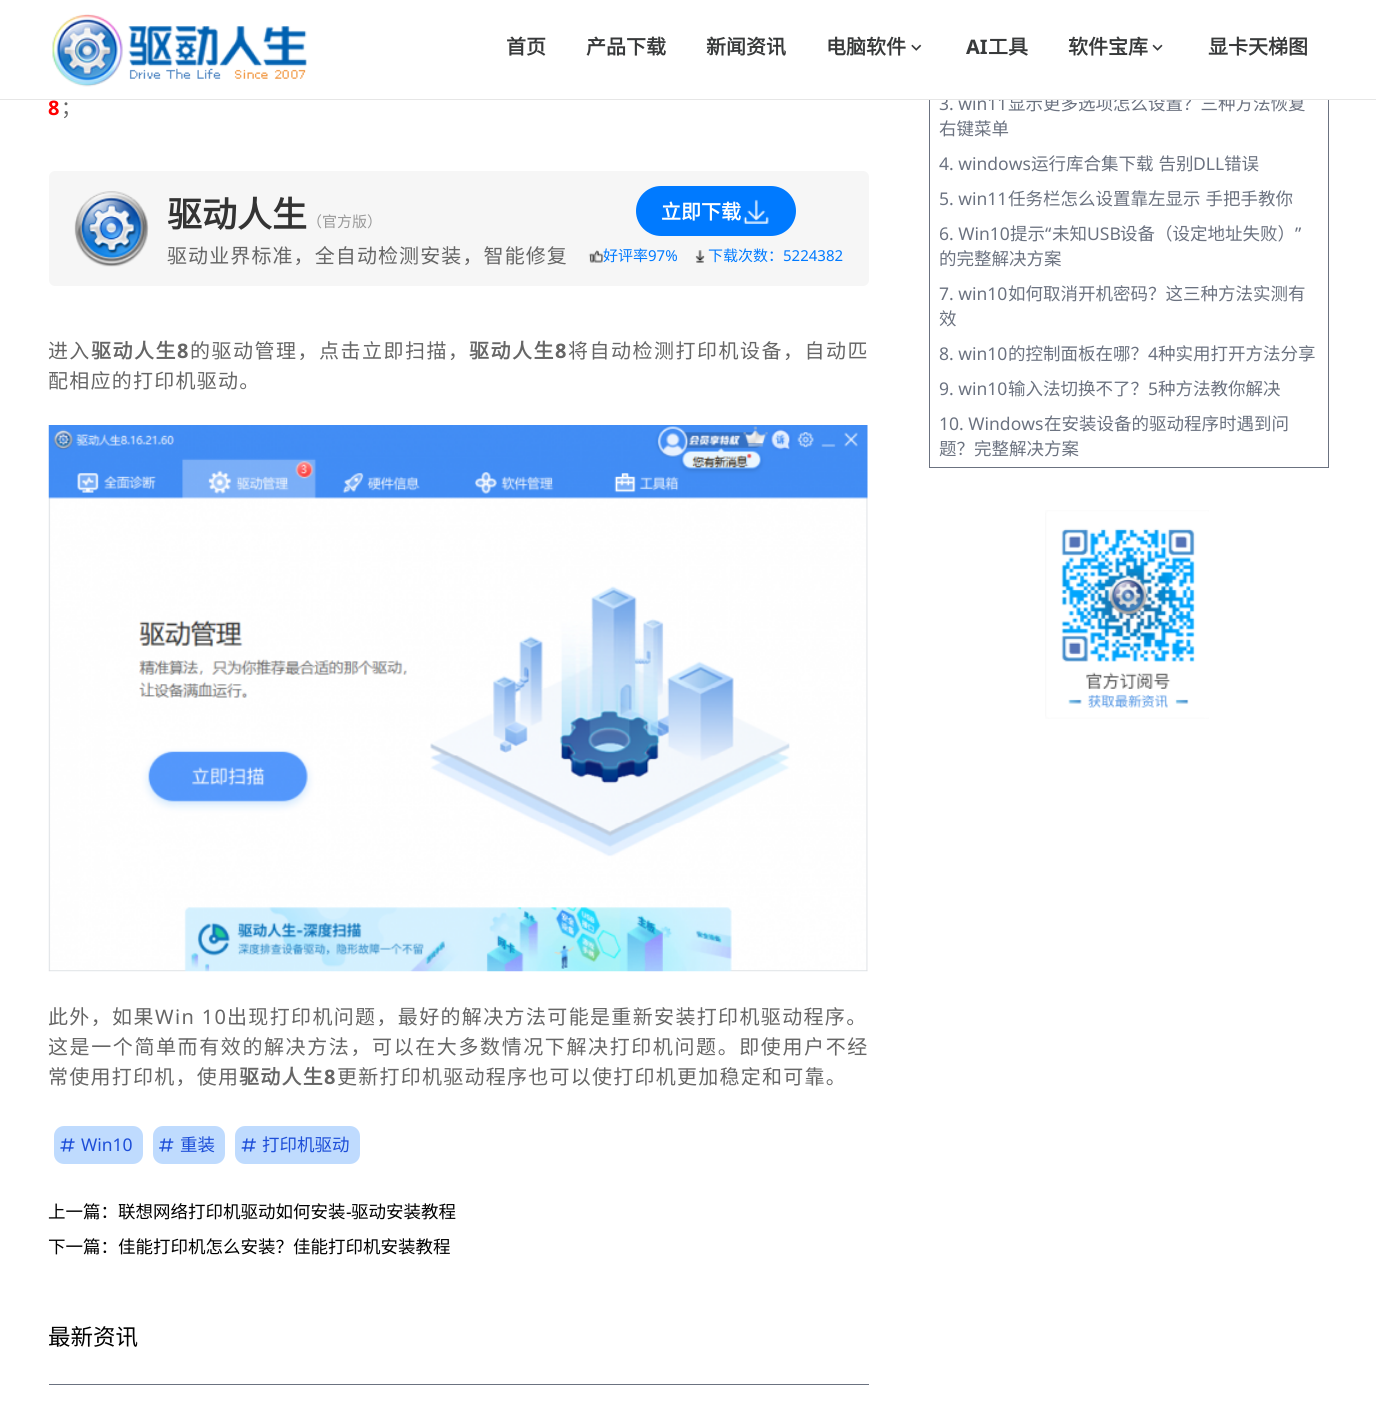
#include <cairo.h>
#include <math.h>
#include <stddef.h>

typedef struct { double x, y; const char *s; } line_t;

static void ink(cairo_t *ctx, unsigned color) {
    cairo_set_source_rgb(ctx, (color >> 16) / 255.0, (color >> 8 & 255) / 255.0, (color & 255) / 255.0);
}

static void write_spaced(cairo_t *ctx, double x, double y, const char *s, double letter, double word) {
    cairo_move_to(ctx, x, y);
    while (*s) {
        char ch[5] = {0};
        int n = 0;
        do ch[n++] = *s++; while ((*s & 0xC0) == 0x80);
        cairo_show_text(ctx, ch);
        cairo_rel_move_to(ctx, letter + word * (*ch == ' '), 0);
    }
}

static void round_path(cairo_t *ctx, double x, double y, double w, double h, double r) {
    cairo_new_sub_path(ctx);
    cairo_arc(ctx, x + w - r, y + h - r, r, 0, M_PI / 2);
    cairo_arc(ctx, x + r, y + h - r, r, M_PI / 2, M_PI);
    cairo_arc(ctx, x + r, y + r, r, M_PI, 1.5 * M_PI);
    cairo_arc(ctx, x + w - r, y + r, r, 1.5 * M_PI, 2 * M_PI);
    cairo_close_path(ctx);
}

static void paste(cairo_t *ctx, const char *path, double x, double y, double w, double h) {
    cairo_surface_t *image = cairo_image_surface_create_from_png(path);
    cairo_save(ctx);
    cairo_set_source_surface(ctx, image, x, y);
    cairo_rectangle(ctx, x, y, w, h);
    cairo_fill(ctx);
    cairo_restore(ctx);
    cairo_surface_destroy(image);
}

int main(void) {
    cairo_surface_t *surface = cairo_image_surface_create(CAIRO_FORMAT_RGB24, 1376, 1415);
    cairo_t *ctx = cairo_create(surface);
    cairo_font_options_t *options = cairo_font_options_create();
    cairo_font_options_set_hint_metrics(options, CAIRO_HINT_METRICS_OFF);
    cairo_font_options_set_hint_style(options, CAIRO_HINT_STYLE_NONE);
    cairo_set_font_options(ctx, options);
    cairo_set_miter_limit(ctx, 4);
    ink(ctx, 0xFFFFFF);
    cairo_paint(ctx);
    cairo_rectangle(ctx, 929.5, -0.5, 399, 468);
    ink(ctx, 0x6B7280);
    cairo_set_line_width(ctx, 1);
    cairo_stroke(ctx);
    cairo_select_font_face(ctx, "Noto Sans", CAIRO_FONT_SLANT_NORMAL, CAIRO_FONT_WEIGHT_NORMAL);
    cairo_set_font_size(ctx, 17.5);
    cairo_move_to(ctx, 939, 110);
    cairo_show_text(ctx, "3. win11");
    cairo_select_font_face(ctx, "Noto Sans CJK SC", CAIRO_FONT_SLANT_NORMAL, CAIRO_FONT_WEIGHT_NORMAL);
    cairo_move_to(ctx, 1008, 110);
    cairo_show_text(ctx, "显示更多选项怎么设置？三种方法恢复");
    ink(ctx, 0xFFFFFF);
    cairo_rectangle(ctx, 929, 0, 400, 99);
    cairo_fill(ctx);
    ink(ctx, 0xE6E6E6);
    cairo_rectangle(ctx, 0, 99, 1376, 1);
    cairo_fill(ctx);
    paste(ctx, "media/1.png", 52, 14, 255, 73);
    cairo_select_font_face(ctx, "Noto Sans CJK SC", CAIRO_FONT_SLANT_NORMAL, CAIRO_FONT_WEIGHT_BOLD);
    cairo_set_font_size(ctx, 20);
    ink(ctx, 0x383A3B);
    {
        static const line_t items[] = {
            {506, 54, "首页"},
            {586, 54, "产品下载"},
            {706, 54, "新闻资讯"},
            {826, 54, "电脑软件"},
        };
        for (size_t i = 0; i < sizeof items / sizeof *items; i++) {
            cairo_move_to(ctx, items[i].x, items[i].y);
            cairo_show_text(ctx, items[i].s);
        }
    }
    paste(ctx, "media/2.png", 911, 44, 11, 7);
    cairo_select_font_face(ctx, "Noto Sans", CAIRO_FONT_SLANT_NORMAL, CAIRO_FONT_WEIGHT_BOLD);
    cairo_move_to(ctx, 966, 54);
    cairo_show_text(ctx, "AI");
    cairo_select_font_face(ctx, "Noto Sans CJK SC", CAIRO_FONT_SLANT_NORMAL, CAIRO_FONT_WEIGHT_BOLD);
    cairo_move_to(ctx, 988, 54);
    cairo_show_text(ctx, "工具");
    cairo_move_to(ctx, 1068, 54);
    cairo_show_text(ctx, "软件宝库");
    paste(ctx, "media/3.png", 1152, 44, 11, 7);
    cairo_move_to(ctx, 1208, 54);
    cairo_show_text(ctx, "显卡天梯图");
    cairo_select_font_face(ctx, "Noto Sans", CAIRO_FONT_SLANT_NORMAL, CAIRO_FONT_WEIGHT_BOLD);
    ink(ctx, 0xFF0000);
    write_spaced(ctx, 48, 115, "8", 1.25, 0);
    cairo_select_font_face(ctx, "Noto Sans CJK SC", CAIRO_FONT_SLANT_NORMAL, CAIRO_FONT_WEIGHT_NORMAL);
    ink(ctx, 0x666666);
    write_spaced(ctx, 61, 115, "；", 1.25, 0);
    ink(ctx, 0xF6F6F6);
    round_path(ctx, 49, 171, 820, 115, 6);
    cairo_fill(ctx);
    paste(ctx, "media/4.png", 74, 191, 75, 76);
    cairo_select_font_face(ctx, "Noto Sans CJK SC", CAIRO_FONT_SLANT_NORMAL, CAIRO_FONT_WEIGHT_BOLD);
    cairo_set_font_size(ctx, 35);
    ink(ctx, 0x333333);
    cairo_move_to(ctx, 167, 227);
    cairo_show_text(ctx, "驱动人生");
    cairo_select_font_face(ctx, "Noto Sans CJK SC", CAIRO_FONT_SLANT_NORMAL, CAIRO_FONT_WEIGHT_NORMAL);
    cairo_set_font_size(ctx, 15);
    ink(ctx, 0x999999);
    cairo_move_to(ctx, 307, 227);
    cairo_show_text(ctx, "（官方版）");
    cairo_set_font_size(ctx, 20);
    ink(ctx, 0x666666);
    write_spaced(ctx, 167, 263, "驱动业界标准，全自动检测安装，智能修复", 1.1, 0);
    ink(ctx, 0x007AFF);
    round_path(ctx, 636, 186, 160, 50, 25);
    cairo_fill(ctx);
    cairo_select_font_face(ctx, "Noto Sans CJK SC", CAIRO_FONT_SLANT_NORMAL, CAIRO_FONT_WEIGHT_BOLD);
    ink(ctx, 0xFFFFFF);
    cairo_move_to(ctx, 661, 219);
    cairo_show_text(ctx, "立即下载");
    paste(ctx, "media/5.png", 743, 199, 26, 25);
    paste(ctx, "media/6.png", 588, 250, 16, 13);
    cairo_select_font_face(ctx, "Noto Sans CJK SC", CAIRO_FONT_SLANT_NORMAL, CAIRO_FONT_WEIGHT_NORMAL);
    cairo_set_font_size(ctx, 15);
    ink(ctx, 0x007AFF);
    cairo_move_to(ctx, 603, 261);
    cairo_show_text(ctx, "好评率");
    cairo_select_font_face(ctx, "Noto Sans", CAIRO_FONT_SLANT_NORMAL, CAIRO_FONT_WEIGHT_NORMAL);
    cairo_move_to(ctx, 648, 261);
    cairo_show_text(ctx, "97%");
    paste(ctx, "media/7.png", 695, 250, 10, 13);
    cairo_select_font_face(ctx, "Noto Sans CJK SC", CAIRO_FONT_SLANT_NORMAL, CAIRO_FONT_WEIGHT_NORMAL);
    cairo_move_to(ctx, 708, 261);
    cairo_show_text(ctx, "下载次数：");
    cairo_select_font_face(ctx, "Noto Sans", CAIRO_FONT_SLANT_NORMAL, CAIRO_FONT_WEIGHT_NORMAL);
    cairo_move_to(ctx, 783, 261);
    cairo_show_text(ctx, "5224382");
    cairo_select_font_face(ctx, "Noto Sans CJK SC", CAIRO_FONT_SLANT_NORMAL, CAIRO_FONT_WEIGHT_NORMAL);
    cairo_set_font_size(ctx, 20);
    ink(ctx, 0x666666);
    write_spaced(ctx, 48, 358, "进入", 1.25, 0);
    cairo_select_font_face(ctx, "Noto Sans CJK SC", CAIRO_FONT_SLANT_NORMAL, CAIRO_FONT_WEIGHT_BOLD);
    write_spaced(ctx, 91, 358, "驱动人生", 1.5, 0);
    cairo_select_font_face(ctx, "Noto Sans", CAIRO_FONT_SLANT_NORMAL, CAIRO_FONT_WEIGHT_BOLD);
    write_spaced(ctx, 177, 358, "8", 1.5, 0);
    cairo_select_font_face(ctx, "Noto Sans CJK SC", CAIRO_FONT_SLANT_NORMAL, CAIRO_FONT_WEIGHT_NORMAL);
    write_spaced(ctx, 190, 358, "的驱动管理，点击立即扫描，", 1.5, 0);
    cairo_select_font_face(ctx, "Noto Sans CJK SC", CAIRO_FONT_SLANT_NORMAL, CAIRO_FONT_WEIGHT_BOLD);
    write_spaced(ctx, 469, 358, "驱动人生", 1.5, 0);
    cairo_select_font_face(ctx, "Noto Sans", CAIRO_FONT_SLANT_NORMAL, CAIRO_FONT_WEIGHT_BOLD);
    write_spaced(ctx, 555, 358, "8", 1.5, 0);
    cairo_select_font_face(ctx, "Noto Sans CJK SC", CAIRO_FONT_SLANT_NORMAL, CAIRO_FONT_WEIGHT_NORMAL);
    write_spaced(ctx, 568, 358, "将自动检测打印机设备，自动匹", 1.5, 0);
    write_spaced(ctx, 48, 388, "配相应的打印机驱动。", 1.25, 0);
    paste(ctx, "media/8.png", 48, 425, 820, 547);
    write_spaced(ctx, 48, 1024, "此外，如果", 1.35, 0);
    cairo_select_font_face(ctx, "Noto Sans", CAIRO_FONT_SLANT_NORMAL, CAIRO_FONT_WEIGHT_NORMAL);
    write_spaced(ctx, 155, 1024, "Win 10", 1.35, 0);
    cairo_select_font_face(ctx, "Noto Sans CJK SC", CAIRO_FONT_SLANT_NORMAL, CAIRO_FONT_WEIGHT_NORMAL);
    write_spaced(ctx, 227, 1024, "出现打印机问题，最好的解决方法可能是重新安装打印机驱动程序。", 1.35, 0);
    write_spaced(ctx, 48, 1054, "这是一个简单而有效的解决方法，可以在大多数情况下解决打印机问题。即使用户不经", 1.6, 0);
    write_spaced(ctx, 48, 1084, "常使用打印机，使用", 1.25, 0);
    cairo_select_font_face(ctx, "Noto Sans CJK SC", CAIRO_FONT_SLANT_NORMAL, CAIRO_FONT_WEIGHT_BOLD);
    write_spaced(ctx, 239, 1084, "驱动人生", 1.25, 0);
    cairo_select_font_face(ctx, "Noto Sans", CAIRO_FONT_SLANT_NORMAL, CAIRO_FONT_WEIGHT_BOLD);
    write_spaced(ctx, 324, 1084, "8", 1.25, 0);
    cairo_select_font_face(ctx, "Noto Sans CJK SC", CAIRO_FONT_SLANT_NORMAL, CAIRO_FONT_WEIGHT_NORMAL);
    write_spaced(ctx, 337, 1084, "更新打印机驱动程序也可以使打印机更加稳定和可靠。", 1.25, 0);
    ink(ctx, 0xBFDBFE);
    round_path(ctx, 54, 1126, 89, 38, 10);
    cairo_fill(ctx);
    paste(ctx, "media/9.png", 60, 1138, 15, 14);
    cairo_select_font_face(ctx, "Noto Sans", CAIRO_FONT_SLANT_NORMAL, CAIRO_FONT_WEIGHT_NORMAL);
    cairo_set_font_size(ctx, 17.5);
    ink(ctx, 0x1D4ED8);
    cairo_move_to(ctx, 81, 1151);
    cairo_show_text(ctx, "Win10");
    ink(ctx, 0xBFDBFE);
    round_path(ctx, 153, 1126, 72, 38, 10);
    cairo_fill(ctx);
    paste(ctx, "media/10.png", 159, 1138, 15, 14);
    cairo_select_font_face(ctx, "Noto Sans CJK SC", CAIRO_FONT_SLANT_NORMAL, CAIRO_FONT_WEIGHT_NORMAL);
    ink(ctx, 0x1D4ED8);
    cairo_move_to(ctx, 180, 1151);
    cairo_show_text(ctx, "重装");
    ink(ctx, 0xBFDBFE);
    round_path(ctx, 235, 1126, 125, 38, 10);
    cairo_fill(ctx);
    paste(ctx, "media/11.png", 241, 1138, 15, 14);
    ink(ctx, 0x1D4ED8);
    cairo_move_to(ctx, 262, 1151);
    cairo_show_text(ctx, "打印机驱动");
    ink(ctx, 0x000000);
    cairo_move_to(ctx, 48, 1218);
    cairo_show_text(ctx, "上一篇：联想网络打印机驱动如何安装");
    cairo_select_font_face(ctx, "Noto Sans", CAIRO_FONT_SLANT_NORMAL, CAIRO_FONT_WEIGHT_NORMAL);
    cairo_move_to(ctx, 346, 1218);
    cairo_show_text(ctx, "-");
    cairo_select_font_face(ctx, "Noto Sans CJK SC", CAIRO_FONT_SLANT_NORMAL, CAIRO_FONT_WEIGHT_NORMAL);
    cairo_move_to(ctx, 351, 1218);
    cairo_show_text(ctx, "驱动安装教程");
    cairo_move_to(ctx, 48, 1253);
    cairo_show_text(ctx, "下一篇：佳能打印机怎么安装？佳能打印机安装教程");
    ink(ctx, 0x6B7280);
    cairo_rectangle(ctx, 49, 1384, 820, 1);
    cairo_fill(ctx);
    cairo_set_font_size(ctx, 22.5);
    ink(ctx, 0x000000);
    cairo_move_to(ctx, 48, 1345);
    cairo_show_text(ctx, "最新资讯");
    cairo_set_font_size(ctx, 17.5);
    ink(ctx, 0x6B7280);
    cairo_move_to(ctx, 939, 135);
    cairo_show_text(ctx, "右键菜单");
    cairo_select_font_face(ctx, "Noto Sans", CAIRO_FONT_SLANT_NORMAL, CAIRO_FONT_WEIGHT_NORMAL);
    cairo_move_to(ctx, 939, 170);
    cairo_show_text(ctx, "4. windows");
    cairo_select_font_face(ctx, "Noto Sans CJK SC", CAIRO_FONT_SLANT_NORMAL, CAIRO_FONT_WEIGHT_NORMAL);
    write_spaced(ctx, 1031, 170, "运行库合集下载 告别", 0, 1);
    cairo_select_font_face(ctx, "Noto Sans", CAIRO_FONT_SLANT_NORMAL, CAIRO_FONT_WEIGHT_NORMAL);
    cairo_move_to(ctx, 1193, 170);
    cairo_show_text(ctx, "DLL");
    cairo_select_font_face(ctx, "Noto Sans CJK SC", CAIRO_FONT_SLANT_NORMAL, CAIRO_FONT_WEIGHT_NORMAL);
    cairo_move_to(ctx, 1224, 170);
    cairo_show_text(ctx, "错误");
    cairo_select_font_face(ctx, "Noto Sans", CAIRO_FONT_SLANT_NORMAL, CAIRO_FONT_WEIGHT_NORMAL);
    cairo_move_to(ctx, 939, 205);
    cairo_show_text(ctx, "5. win11");
    cairo_select_font_face(ctx, "Noto Sans CJK SC", CAIRO_FONT_SLANT_NORMAL, CAIRO_FONT_WEIGHT_NORMAL);
    write_spaced(ctx, 1008, 205, "任务栏怎么设置靠左显示 手把手教你", 0, 1);
    cairo_select_font_face(ctx, "Noto Sans", CAIRO_FONT_SLANT_NORMAL, CAIRO_FONT_WEIGHT_NORMAL);
    cairo_move_to(ctx, 939, 240);
    cairo_show_text(ctx, "6. Win10");
    cairo_select_font_face(ctx, "Noto Sans CJK SC", CAIRO_FONT_SLANT_NORMAL, CAIRO_FONT_WEIGHT_NORMAL);
    cairo_move_to(ctx, 1010, 240);
    cairo_show_text(ctx, "提示");
    cairo_select_font_face(ctx, "Noto Sans", CAIRO_FONT_SLANT_NORMAL, CAIRO_FONT_WEIGHT_NORMAL);
    cairo_move_to(ctx, 1045, 240);
    cairo_show_text(ctx, "“");
    cairo_select_font_face(ctx, "Noto Sans CJK SC", CAIRO_FONT_SLANT_NORMAL, CAIRO_FONT_WEIGHT_NORMAL);
    cairo_move_to(ctx, 1052, 240);
    cairo_show_text(ctx, "未知");
    cairo_select_font_face(ctx, "Noto Sans", CAIRO_FONT_SLANT_NORMAL, CAIRO_FONT_WEIGHT_NORMAL);
    cairo_move_to(ctx, 1087, 240);
    cairo_show_text(ctx, "USB");
    cairo_select_font_face(ctx, "Noto Sans CJK SC", CAIRO_FONT_SLANT_NORMAL, CAIRO_FONT_WEIGHT_NORMAL);
    cairo_move_to(ctx, 1120, 240);
    cairo_show_text(ctx, "设备（设定地址失败）");
    cairo_select_font_face(ctx, "Noto Sans", CAIRO_FONT_SLANT_NORMAL, CAIRO_FONT_WEIGHT_NORMAL);
    cairo_move_to(ctx, 1295, 240);
    cairo_show_text(ctx, "”");
    cairo_select_font_face(ctx, "Noto Sans CJK SC", CAIRO_FONT_SLANT_NORMAL, CAIRO_FONT_WEIGHT_NORMAL);
    cairo_move_to(ctx, 939, 265);
    cairo_show_text(ctx, "的完整解决方案");
    cairo_select_font_face(ctx, "Noto Sans", CAIRO_FONT_SLANT_NORMAL, CAIRO_FONT_WEIGHT_NORMAL);
    cairo_move_to(ctx, 939, 300);
    cairo_show_text(ctx, "7. win10");
    cairo_select_font_face(ctx, "Noto Sans CJK SC", CAIRO_FONT_SLANT_NORMAL, CAIRO_FONT_WEIGHT_NORMAL);
    cairo_move_to(ctx, 1008, 300);
    cairo_show_text(ctx, "如何取消开机密码？这三种方法实测有");
    cairo_move_to(ctx, 939, 325);
    cairo_show_text(ctx, "效");
    cairo_select_font_face(ctx, "Noto Sans", CAIRO_FONT_SLANT_NORMAL, CAIRO_FONT_WEIGHT_NORMAL);
    cairo_move_to(ctx, 939, 360);
    cairo_show_text(ctx, "8. win10");
    cairo_select_font_face(ctx, "Noto Sans CJK SC", CAIRO_FONT_SLANT_NORMAL, CAIRO_FONT_WEIGHT_NORMAL);
    cairo_move_to(ctx, 1008, 360);
    cairo_show_text(ctx, "的控制面板在哪？");
    cairo_select_font_face(ctx, "Noto Sans", CAIRO_FONT_SLANT_NORMAL, CAIRO_FONT_WEIGHT_NORMAL);
    cairo_move_to(ctx, 1148, 360);
    cairo_show_text(ctx, "4");
    cairo_select_font_face(ctx, "Noto Sans CJK SC", CAIRO_FONT_SLANT_NORMAL, CAIRO_FONT_WEIGHT_NORMAL);
    cairo_move_to(ctx, 1158, 360);
    cairo_show_text(ctx, "种实用打开方法分享");
    cairo_select_font_face(ctx, "Noto Sans", CAIRO_FONT_SLANT_NORMAL, CAIRO_FONT_WEIGHT_NORMAL);
    cairo_move_to(ctx, 939, 395);
    cairo_show_text(ctx, "9. win10");
    cairo_select_font_face(ctx, "Noto Sans CJK SC", CAIRO_FONT_SLANT_NORMAL, CAIRO_FONT_WEIGHT_NORMAL);
    cairo_move_to(ctx, 1008, 395);
    cairo_show_text(ctx, "输入法切换不了？");
    cairo_select_font_face(ctx, "Noto Sans", CAIRO_FONT_SLANT_NORMAL, CAIRO_FONT_WEIGHT_NORMAL);
    cairo_move_to(ctx, 1148, 395);
    cairo_show_text(ctx, "5");
    cairo_select_font_face(ctx, "Noto Sans CJK SC", CAIRO_FONT_SLANT_NORMAL, CAIRO_FONT_WEIGHT_NORMAL);
    cairo_move_to(ctx, 1158, 395);
    cairo_show_text(ctx, "种方法教你解决");
    cairo_select_font_face(ctx, "Noto Sans", CAIRO_FONT_SLANT_NORMAL, CAIRO_FONT_WEIGHT_NORMAL);
    cairo_move_to(ctx, 939, 430);
    cairo_show_text(ctx, "10. Windows");
    cairo_select_font_face(ctx, "Noto Sans CJK SC", CAIRO_FONT_SLANT_NORMAL, CAIRO_FONT_WEIGHT_NORMAL);
    cairo_move_to(ctx, 1044, 430);
    cairo_show_text(ctx, "在安装设备的驱动程序时遇到问");
    cairo_move_to(ctx, 939, 455);
    cairo_show_text(ctx, "题？完整解决方案");
    paste(ctx, "media/12.png", 1045, 510, 164, 209);
    cairo_surface_write_to_png(surface, "image.png");
    cairo_font_options_destroy(options);
    cairo_destroy(ctx);
    cairo_surface_destroy(surface);
    return 0;
}
